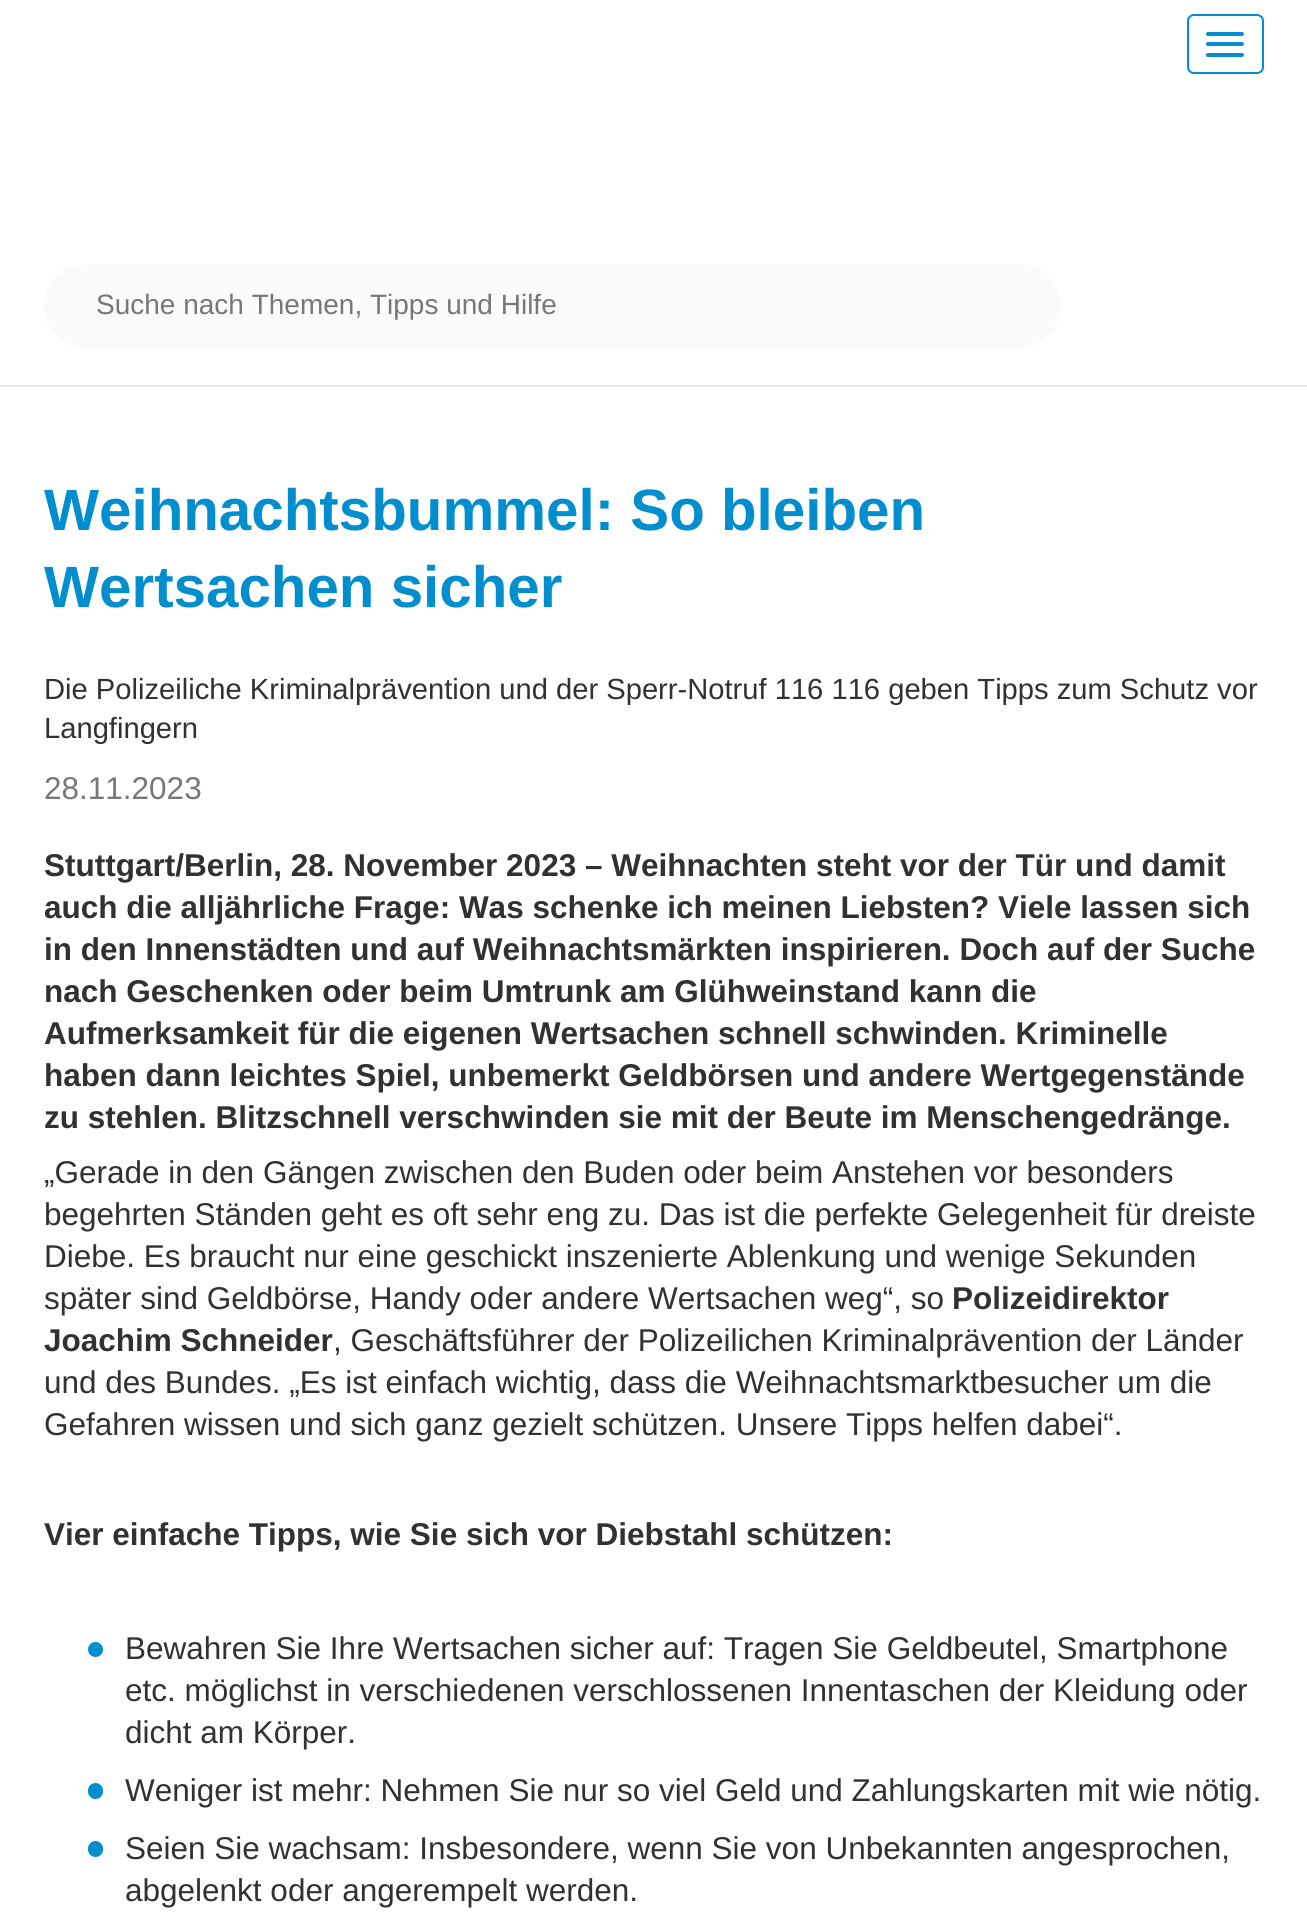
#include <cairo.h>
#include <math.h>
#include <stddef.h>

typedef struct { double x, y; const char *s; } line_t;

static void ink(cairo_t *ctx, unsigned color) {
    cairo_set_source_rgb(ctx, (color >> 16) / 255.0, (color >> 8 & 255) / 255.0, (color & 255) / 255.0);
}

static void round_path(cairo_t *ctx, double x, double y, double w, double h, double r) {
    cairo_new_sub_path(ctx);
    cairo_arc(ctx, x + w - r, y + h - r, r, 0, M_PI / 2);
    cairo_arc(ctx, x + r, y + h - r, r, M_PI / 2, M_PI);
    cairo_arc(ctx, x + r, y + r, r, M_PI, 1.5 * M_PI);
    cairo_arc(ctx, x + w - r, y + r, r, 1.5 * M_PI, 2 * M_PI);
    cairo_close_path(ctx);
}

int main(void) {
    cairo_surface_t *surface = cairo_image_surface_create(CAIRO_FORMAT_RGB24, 1307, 1929);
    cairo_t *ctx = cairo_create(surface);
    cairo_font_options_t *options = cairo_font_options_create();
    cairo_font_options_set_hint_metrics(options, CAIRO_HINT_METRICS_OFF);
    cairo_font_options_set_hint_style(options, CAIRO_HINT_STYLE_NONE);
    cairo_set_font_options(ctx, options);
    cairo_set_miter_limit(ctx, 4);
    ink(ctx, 0xFFFFFF);
    cairo_paint(ctx);
    ink(ctx, 0xE7E7E7);
    cairo_rectangle(ctx, 0, 385, 1307, 2);
    cairo_fill(ctx);
    round_path(ctx, 1188, 15, 75, 58, 6);
    ink(ctx, 0x008ECF);
    cairo_stroke(ctx);
    round_path(ctx, 1206, 32, 38, 4, 2);
    cairo_fill(ctx);
    round_path(ctx, 1206, 42, 38, 4, 2);
    cairo_fill(ctx);
    round_path(ctx, 1206, 53, 38, 4, 2);
    cairo_fill(ctx);
    ink(ctx, 0xFAFAFA);
    round_path(ctx, 44, 264, 1017, 84, 42);
    cairo_fill(ctx);
    cairo_select_font_face(ctx, "Liberation Sans", CAIRO_FONT_SLANT_NORMAL, CAIRO_FONT_WEIGHT_NORMAL);
    cairo_set_font_size(ctx, 28);
    ink(ctx, 0x777777);
    cairo_move_to(ctx, 96, 314);
    cairo_show_text(ctx, "Suche nach Themen, Tipps und Hilfe");
    cairo_select_font_face(ctx, "Liberation Sans", CAIRO_FONT_SLANT_NORMAL, CAIRO_FONT_WEIGHT_BOLD);
    cairo_set_font_size(ctx, 58.3);
    ink(ctx, 0x008ECF);
    cairo_move_to(ctx, 44, 530);
    cairo_show_text(ctx, "Weihnachtsbummel: So bleiben");
    cairo_move_to(ctx, 44, 607);
    cairo_show_text(ctx, "Wertsachen sicher");
    cairo_select_font_face(ctx, "Liberation Sans", CAIRO_FONT_SLANT_NORMAL, CAIRO_FONT_WEIGHT_NORMAL);
    cairo_set_font_size(ctx, 29.15);
    ink(ctx, 0x313131);
    cairo_move_to(ctx, 44, 699);
    cairo_show_text(ctx, "Die Polizeiliche Kriminalprävention und der Sperr-Notruf 116 116 geben Tipps zum Schutz vor");
    cairo_move_to(ctx, 44, 738);
    cairo_show_text(ctx, "Langfingern");
    cairo_set_font_size(ctx, 31.5);
    ink(ctx, 0x777777);
    cairo_move_to(ctx, 44, 799);
    cairo_show_text(ctx, "28.11.2023");
    cairo_select_font_face(ctx, "Liberation Sans", CAIRO_FONT_SLANT_NORMAL, CAIRO_FONT_WEIGHT_BOLD);
    ink(ctx, 0x313131);
    {
        static const line_t items[] = {
            {44, 876, "Stuttgart/Berlin, 28. November 2023 – Weihnachten steht vor der Tür und damit"},
            {44, 918, "auch die alljährliche Frage: Was schenke ich meinen Liebsten? Viele lassen sich"},
            {44, 960, "in den Innenstädten und auf Weihnachtsmärkten inspirieren. Doch auf der Suche"},
            {44, 1002, "nach Geschenken oder beim Umtrunk am Glühweinstand kann die"},
            {44, 1044, "Aufmerksamkeit für die eigenen Wertsachen schnell schwinden. Kriminelle"},
            {44, 1086, "haben dann leichtes Spiel, unbemerkt Geldbörsen und andere Wertgegenstände"},
            {44, 1128, "zu stehlen. Blitzschnell verschwinden sie mit der Beute im Menschengedränge."},
        };
        for (size_t i = 0; i < sizeof items / sizeof *items; i++) {
            cairo_move_to(ctx, items[i].x, items[i].y);
            cairo_show_text(ctx, items[i].s);
        }
    }
    cairo_select_font_face(ctx, "Liberation Sans", CAIRO_FONT_SLANT_NORMAL, CAIRO_FONT_WEIGHT_NORMAL);
    {
        static const line_t items[] = {
            {44, 1183, "„Gerade in den Gängen zwischen den Buden oder beim Anstehen vor besonders"},
            {44, 1225, "begehrten Ständen geht es oft sehr eng zu. Das ist die perfekte Gelegenheit für dreiste"},
            {44, 1267, "Diebe. Es braucht nur eine geschickt inszenierte Ablenkung und wenige Sekunden"},
            {44, 1309, "später sind Geldbörse, Handy oder andere Wertsachen weg“, so"},
        };
        for (size_t i = 0; i < sizeof items / sizeof *items; i++) {
            cairo_move_to(ctx, items[i].x, items[i].y);
            cairo_show_text(ctx, items[i].s);
        }
    }
    cairo_select_font_face(ctx, "Liberation Sans", CAIRO_FONT_SLANT_NORMAL, CAIRO_FONT_WEIGHT_BOLD);
    cairo_move_to(ctx, 952, 1309);
    cairo_show_text(ctx, "Polizeidirektor");
    cairo_move_to(ctx, 44, 1351);
    cairo_show_text(ctx, "Joachim Schneider");
    cairo_select_font_face(ctx, "Liberation Sans", CAIRO_FONT_SLANT_NORMAL, CAIRO_FONT_WEIGHT_NORMAL);
    {
        static const line_t items[] = {
            {333, 1351, ", Geschäftsführer der Polizeilichen Kriminalprävention der Länder"},
            {44, 1393, "und des Bundes. „Es ist einfach wichtig, dass die Weihnachtsmarktbesucher um die"},
            {44, 1435, "Gefahren wissen und sich ganz gezielt schützen. Unsere Tipps helfen dabei“."},
        };
        for (size_t i = 0; i < sizeof items / sizeof *items; i++) {
            cairo_move_to(ctx, items[i].x, items[i].y);
            cairo_show_text(ctx, items[i].s);
        }
    }
    cairo_select_font_face(ctx, "Liberation Sans", CAIRO_FONT_SLANT_NORMAL, CAIRO_FONT_WEIGHT_BOLD);
    cairo_move_to(ctx, 44, 1545);
    cairo_show_text(ctx, "Vier einfache Tipps, wie Sie sich vor Diebstahl schützen:");
    ink(ctx, 0x008ECF);
    cairo_new_path(ctx);
    cairo_arc(ctx, 95.5, 1649.5, 6.5, 0, 2 * M_PI);
    cairo_fill_preserve(ctx);
    cairo_stroke(ctx);
    cairo_select_font_face(ctx, "Liberation Sans", CAIRO_FONT_SLANT_NORMAL, CAIRO_FONT_WEIGHT_NORMAL);
    ink(ctx, 0x313131);
    {
        static const line_t items[] = {
            {125, 1659, "Bewahren Sie Ihre Wertsachen sicher auf: Tragen Sie Geldbeutel, Smartphone"},
            {125, 1701, "etc. möglichst in verschiedenen verschlossenen Innentaschen der Kleidung oder"},
            {125, 1743, "dicht am Körper."},
        };
        for (size_t i = 0; i < sizeof items / sizeof *items; i++) {
            cairo_move_to(ctx, items[i].x, items[i].y);
            cairo_show_text(ctx, items[i].s);
        }
    }
    ink(ctx, 0x008ECF);
    round_path(ctx, 89, 1784, 13, 14, 6.5);
    cairo_fill_preserve(ctx);
    cairo_stroke(ctx);
    ink(ctx, 0x313131);
    cairo_move_to(ctx, 125, 1801);
    cairo_show_text(ctx, "Weniger ist mehr: Nehmen Sie nur so viel Geld und Zahlungskarten mit wie nötig.");
    ink(ctx, 0x008ECF);
    round_path(ctx, 89, 1842, 13, 14, 6.5);
    cairo_fill_preserve(ctx);
    cairo_stroke(ctx);
    ink(ctx, 0x313131);
    cairo_move_to(ctx, 125, 1859);
    cairo_show_text(ctx, "Seien Sie wachsam: Insbesondere, wenn Sie von Unbekannten angesprochen,");
    cairo_move_to(ctx, 125, 1901);
    cairo_show_text(ctx, "abgelenkt oder angerempelt werden.");
    cairo_surface_write_to_png(surface, "image.png");
    cairo_font_options_destroy(options);
    cairo_destroy(ctx);
    cairo_surface_destroy(surface);
    return 0;
}
